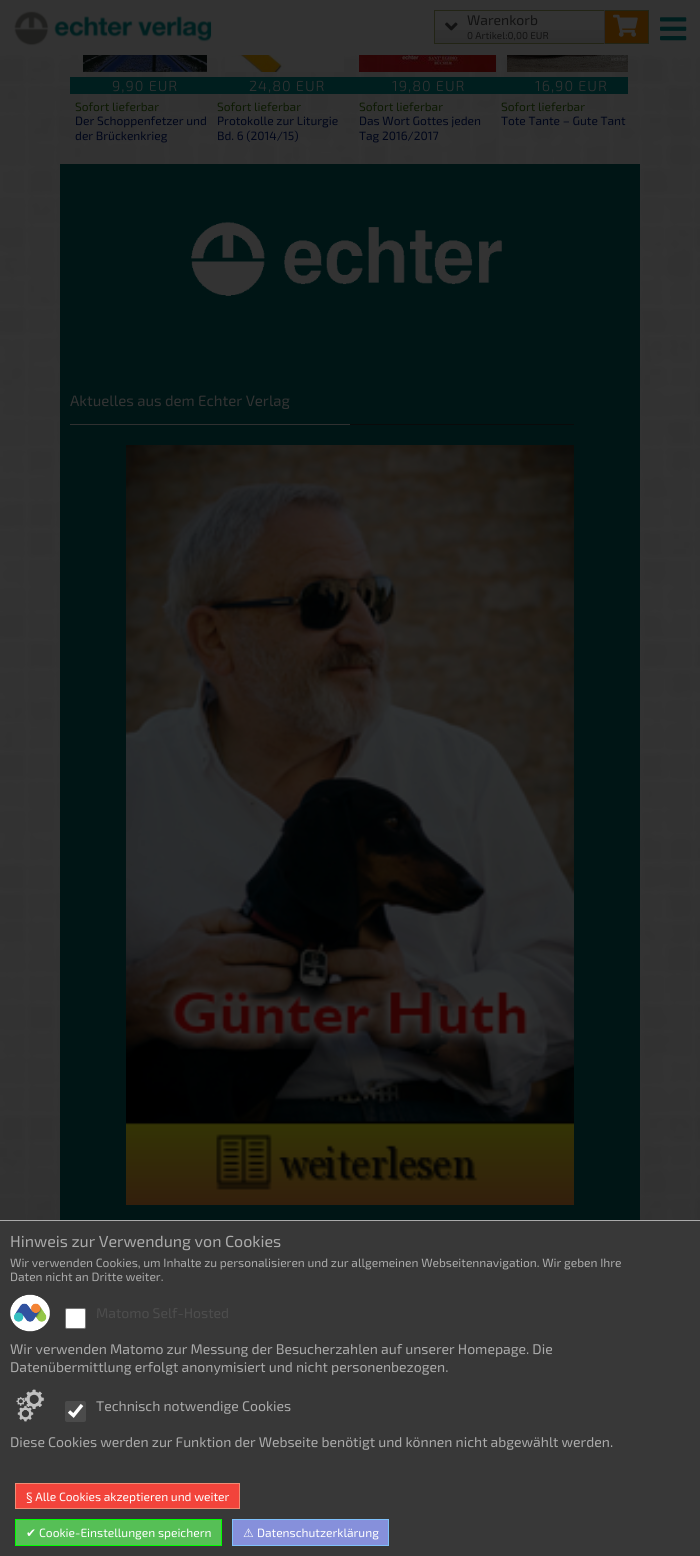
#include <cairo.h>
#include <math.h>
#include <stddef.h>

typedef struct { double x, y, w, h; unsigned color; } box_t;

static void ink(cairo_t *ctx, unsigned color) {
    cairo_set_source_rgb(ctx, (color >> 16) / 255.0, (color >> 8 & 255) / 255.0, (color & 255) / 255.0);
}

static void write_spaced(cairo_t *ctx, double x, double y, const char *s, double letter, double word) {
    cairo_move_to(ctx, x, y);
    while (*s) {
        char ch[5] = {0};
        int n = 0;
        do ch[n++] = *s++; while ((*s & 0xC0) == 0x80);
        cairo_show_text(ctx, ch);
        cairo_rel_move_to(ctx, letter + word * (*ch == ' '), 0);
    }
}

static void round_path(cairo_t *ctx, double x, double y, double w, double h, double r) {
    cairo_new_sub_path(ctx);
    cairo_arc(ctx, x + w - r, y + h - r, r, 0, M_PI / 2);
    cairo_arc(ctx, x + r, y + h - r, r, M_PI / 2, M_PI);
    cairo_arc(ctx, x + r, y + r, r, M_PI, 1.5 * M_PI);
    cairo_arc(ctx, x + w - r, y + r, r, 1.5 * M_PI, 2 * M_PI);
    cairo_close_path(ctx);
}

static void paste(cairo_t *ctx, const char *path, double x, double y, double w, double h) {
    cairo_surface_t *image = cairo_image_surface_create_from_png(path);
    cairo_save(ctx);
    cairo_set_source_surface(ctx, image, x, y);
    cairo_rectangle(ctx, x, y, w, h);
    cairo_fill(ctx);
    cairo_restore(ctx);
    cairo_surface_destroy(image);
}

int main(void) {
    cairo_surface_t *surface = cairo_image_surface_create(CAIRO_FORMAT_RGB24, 700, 1556);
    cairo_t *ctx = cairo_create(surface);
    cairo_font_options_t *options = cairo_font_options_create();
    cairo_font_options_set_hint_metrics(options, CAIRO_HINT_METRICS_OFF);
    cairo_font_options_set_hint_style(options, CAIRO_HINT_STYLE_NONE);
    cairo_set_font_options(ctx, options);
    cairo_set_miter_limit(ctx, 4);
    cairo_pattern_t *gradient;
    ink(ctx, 0xFFFFFF);
    cairo_paint(ctx);
    paste(ctx, "media/1.png", 0, 55, 700, 1165);
    ink(ctx, 0x333333);
    cairo_rectangle(ctx, 0, 0, 700, 55);
    cairo_fill(ctx);
    paste(ctx, "media/2.png", 14, 11, 198, 35);
    gradient = cairo_pattern_create_linear(520, 11, 520, 43);
    cairo_pattern_add_color_stop_rgba(gradient, 0, 0.2, 0.2, 0.2, 1);
    cairo_pattern_add_color_stop_rgba(gradient, 0.47, 0.192, 0.192, 0.192, 1);
    cairo_pattern_add_color_stop_rgba(gradient, 1, 0.184, 0.184, 0.184, 1);
    cairo_set_source(ctx, gradient);
    cairo_pattern_destroy(gradient);
    cairo_rectangle(ctx, 435, 30, 169, 13);
    cairo_fill(ctx);
    {
        static const box_t items[] = {
            {434, 10, 215, 1, 0x222415},
            {434, 43, 170, 1, 0x222415},
            {434, 10, 1, 34, 0x222415},
        };
        for (size_t i = 0; i < sizeof items / sizeof *items; i++) {
            ink(ctx, items[i].color);
            cairo_rectangle(ctx, items[i].x, items[i].y, items[i].w, items[i].h);
            cairo_fill(ctx);
        }
    }
    paste(ctx, "media/3.png", 445, 22, 13, 9);
    cairo_select_font_face(ctx, "Exo 2", CAIRO_FONT_SLANT_NORMAL, CAIRO_FONT_WEIGHT_NORMAL);
    cairo_set_font_size(ctx, 14);
    ink(ctx, 0x111111);
    cairo_move_to(ctx, 467, 25);
    cairo_show_text(ctx, "Warenkorb");
    cairo_set_font_size(ctx, 10);
    cairo_move_to(ctx, 467, 39);
    cairo_show_text(ctx, "0 Artikel:0,00 EUR");
    {
        static const box_t items[] = {
            {605, 11, 43, 32, 0x331D00},
            {648, 10, 1, 34, 0x222415},
            {604, 43, 45, 1, 0x222415},
            {604, 10, 1, 34, 0x292929},
        };
        for (size_t i = 0; i < sizeof items / sizeof *items; i++) {
            ink(ctx, items[i].color);
            cairo_rectangle(ctx, items[i].x, items[i].y, items[i].w, items[i].h);
            cairo_fill(ctx);
        }
    }
    paste(ctx, "media/4.png", 613, 14, 25, 23);
    paste(ctx, "media/5.png", 660, 17, 27, 24);
    paste(ctx, "media/6.png", 83, 55, 124, 17);
    ink(ctx, 0x001E1E);
    cairo_rectangle(ctx, 70, 77, 558, 17);
    cairo_fill(ctx);
    cairo_select_font_face(ctx, "Exo 2 Light", CAIRO_FONT_SLANT_NORMAL, CAIRO_FONT_WEIGHT_NORMAL);
    cairo_set_font_size(ctx, 14.5);
    ink(ctx, 0x333333);
    write_spaced(ctx, 112, 91, "9,90 EUR", 1, 0);
    cairo_select_font_face(ctx, "Exo 2", CAIRO_FONT_SLANT_NORMAL, CAIRO_FONT_WEIGHT_NORMAL);
    cairo_set_font_size(ctx, 12);
    ink(ctx, 0x0C1902);
    cairo_move_to(ctx, 75, 111);
    cairo_show_text(ctx, "Sofort lieferbar");
    ink(ctx, 0x00061A);
    cairo_move_to(ctx, 75, 125);
    cairo_show_text(ctx, "Der Schoppenfetzer und");
    cairo_move_to(ctx, 75, 140);
    cairo_show_text(ctx, "der Brückenkrieg");
    paste(ctx, "media/7.png", 225, 55, 119, 17);
    cairo_select_font_face(ctx, "Exo 2 Light", CAIRO_FONT_SLANT_NORMAL, CAIRO_FONT_WEIGHT_NORMAL);
    cairo_set_font_size(ctx, 14.5);
    ink(ctx, 0x333333);
    write_spaced(ctx, 249, 91, "24,80 EUR", 1, 0);
    cairo_select_font_face(ctx, "Exo 2", CAIRO_FONT_SLANT_NORMAL, CAIRO_FONT_WEIGHT_NORMAL);
    cairo_set_font_size(ctx, 12);
    ink(ctx, 0x0C1902);
    cairo_move_to(ctx, 217, 111);
    cairo_show_text(ctx, "Sofort lieferbar");
    ink(ctx, 0x00061A);
    cairo_move_to(ctx, 217, 125);
    cairo_show_text(ctx, "Protokolle zur Liturgie");
    cairo_move_to(ctx, 217, 140);
    cairo_show_text(ctx, "Bd. 6 (2014/15)");
    paste(ctx, "media/8.png", 359, 55, 137, 17);
    cairo_select_font_face(ctx, "Exo 2 Light", CAIRO_FONT_SLANT_NORMAL, CAIRO_FONT_WEIGHT_NORMAL);
    cairo_set_font_size(ctx, 14.5);
    ink(ctx, 0x333333);
    write_spaced(ctx, 392, 91, "19,80 EUR", 1, 0);
    cairo_select_font_face(ctx, "Exo 2", CAIRO_FONT_SLANT_NORMAL, CAIRO_FONT_WEIGHT_NORMAL);
    cairo_set_font_size(ctx, 12);
    ink(ctx, 0x0C1902);
    cairo_move_to(ctx, 359, 111);
    cairo_show_text(ctx, "Sofort lieferbar");
    ink(ctx, 0x00061A);
    cairo_move_to(ctx, 359, 125);
    cairo_show_text(ctx, "Das Wort Gottes jeden");
    cairo_move_to(ctx, 359, 140);
    cairo_show_text(ctx, "Tag 2016/2017");
    paste(ctx, "media/9.png", 507, 55, 121, 17);
    cairo_select_font_face(ctx, "Exo 2 Light", CAIRO_FONT_SLANT_NORMAL, CAIRO_FONT_WEIGHT_NORMAL);
    cairo_set_font_size(ctx, 14.5);
    ink(ctx, 0x333333);
    write_spaced(ctx, 535, 91, "16,90 EUR", 1, 0);
    cairo_select_font_face(ctx, "Exo 2", CAIRO_FONT_SLANT_NORMAL, CAIRO_FONT_WEIGHT_NORMAL);
    cairo_set_font_size(ctx, 12);
    ink(ctx, 0x0C1902);
    cairo_move_to(ctx, 501, 111);
    cairo_show_text(ctx, "Sofort lieferbar");
    ink(ctx, 0x00061A);
    cairo_move_to(ctx, 501, 125);
    cairo_show_text(ctx, "Tote Tante – Gute Tant");
    ink(ctx, 0x001515);
    cairo_rectangle(ctx, 60, 164, 580, 1056);
    cairo_fill(ctx);
    paste(ctx, "media/10.png", 191, 221, 311, 75);
    ink(ctx, 0x0A0A0A);
    cairo_rectangle(ctx, 350, 424, 224, 1);
    cairo_fill(ctx);
    cairo_set_font_size(ctx, 15);
    ink(ctx, 0x333333);
    cairo_move_to(ctx, 70, 406);
    cairo_show_text(ctx, "Aktuelles aus dem Echter Verlag");
    ink(ctx, 0x303030);
    cairo_rectangle(ctx, 70, 424, 280, 1);
    cairo_fill(ctx);
    paste(ctx, "media/11.png", 126, 445, 448, 760);
    ink(ctx, 0x383838);
    cairo_rectangle(ctx, 0, 1221, 700, 335);
    cairo_fill(ctx);
    ink(ctx, 0xABABAB);
    cairo_rectangle(ctx, 0, 1220, 700, 1);
    cairo_fill(ctx);
    cairo_set_font_size(ctx, 16);
    cairo_move_to(ctx, 10, 1247);
    cairo_show_text(ctx, "Hinweis zur Verwendung von Cookies");
    cairo_set_font_size(ctx, 12);
    cairo_move_to(ctx, 10, 1267);
    cairo_show_text(ctx, "Wir verwenden Cookies, um Inhalte zu personalisieren und zur allgemeinen Webseitennavigation. Wir geben Ihre");
    cairo_move_to(ctx, 10, 1281);
    cairo_show_text(ctx, "Daten nicht an Dritte weiter.");
    paste(ctx, "media/12.png", 10, 1294, 40, 38);
    ink(ctx, 0xFFFFFF);
    round_path(ctx, 65.5, 1308.5, 20, 20, 1.5);
    cairo_fill_preserve(ctx);
    ink(ctx, 0x767676);
    cairo_set_line_width(ctx, 1);
    cairo_stroke(ctx);
    cairo_set_font_size(ctx, 14);
    ink(ctx, 0x4D4D4D);
    cairo_move_to(ctx, 96, 1318);
    cairo_show_text(ctx, "Matomo Self-Hosted");
    ink(ctx, 0xABABAB);
    cairo_move_to(ctx, 10, 1354);
    cairo_show_text(ctx, "Wir verwenden Matomo zur Messung der Besucherzahlen auf unserer Homepage. Die");
    cairo_move_to(ctx, 10, 1372);
    cairo_show_text(ctx, "Datenübermittlung erfolgt anonymisiert und nicht personenbezogen.");
    paste(ctx, "media/13.png", 16, 1389, 29, 33);
    ink(ctx, 0x4B4B4B);
    round_path(ctx, 65, 1401, 21, 21, 2);
    cairo_fill(ctx);
    cairo_new_path(ctx);
    cairo_move_to(ctx, 69, 1411.5);
    cairo_line_to(ctx, 73.5, 1415.5);
    cairo_line_to(ctx, 82, 1405);
    ink(ctx, 0xFFFFFF);
    cairo_set_line_width(ctx, 3.4);
    cairo_stroke(ctx);
    ink(ctx, 0xABABAB);
    cairo_move_to(ctx, 96, 1411);
    cairo_show_text(ctx, "Technisch notwendige Cookies");
    cairo_move_to(ctx, 10, 1447);
    cairo_show_text(ctx, "Diese Cookies werden zur Funktion der Webseite benötigt und können nicht abgewählt werden.");
    ink(ctx, 0xF2443B);
    cairo_rectangle(ctx, 15.5, 1483.5, 224, 25);
    cairo_fill_preserve(ctx);
    ink(ctx, 0xF08C75);
    cairo_set_line_width(ctx, 1);
    cairo_stroke(ctx);
    cairo_set_font_size(ctx, 12);
    ink(ctx, 0xFFFFFF);
    cairo_move_to(ctx, 26, 1501);
    cairo_show_text(ctx, "§ Alle Cookies akzeptieren und weiter");
    ink(ctx, 0x56BF56);
    cairo_rectangle(ctx, 15.5, 1519.5, 206, 26);
    cairo_fill_preserve(ctx);
    ink(ctx, 0x00FF00);
    cairo_stroke(ctx);
    cairo_select_font_face(ctx, "DejaVu Sans", CAIRO_FONT_SLANT_NORMAL, CAIRO_FONT_WEIGHT_NORMAL);
    ink(ctx, 0xFFFFFF);
    cairo_move_to(ctx, 26, 1537);
    cairo_show_text(ctx, "✔");
    cairo_select_font_face(ctx, "Exo 2", CAIRO_FONT_SLANT_NORMAL, CAIRO_FONT_WEIGHT_NORMAL);
    cairo_move_to(ctx, 39, 1537);
    cairo_show_text(ctx, "Cookie-Einstellungen speichern");
    ink(ctx, 0x8690DB);
    cairo_rectangle(ctx, 232.5, 1519.5, 156, 26);
    cairo_fill_preserve(ctx);
    ink(ctx, 0x7FC1FB);
    cairo_stroke(ctx);
    cairo_select_font_face(ctx, "DejaVu Sans", CAIRO_FONT_SLANT_NORMAL, CAIRO_FONT_WEIGHT_NORMAL);
    ink(ctx, 0xFFFFFF);
    cairo_move_to(ctx, 243, 1537);
    cairo_show_text(ctx, "⚠");
    cairo_select_font_face(ctx, "Exo 2", CAIRO_FONT_SLANT_NORMAL, CAIRO_FONT_WEIGHT_NORMAL);
    cairo_move_to(ctx, 257, 1537);
    cairo_show_text(ctx, "Datenschutzerklärung");
    cairo_surface_write_to_png(surface, "image.png");
    cairo_font_options_destroy(options);
    cairo_destroy(ctx);
    cairo_surface_destroy(surface);
    return 0;
}
